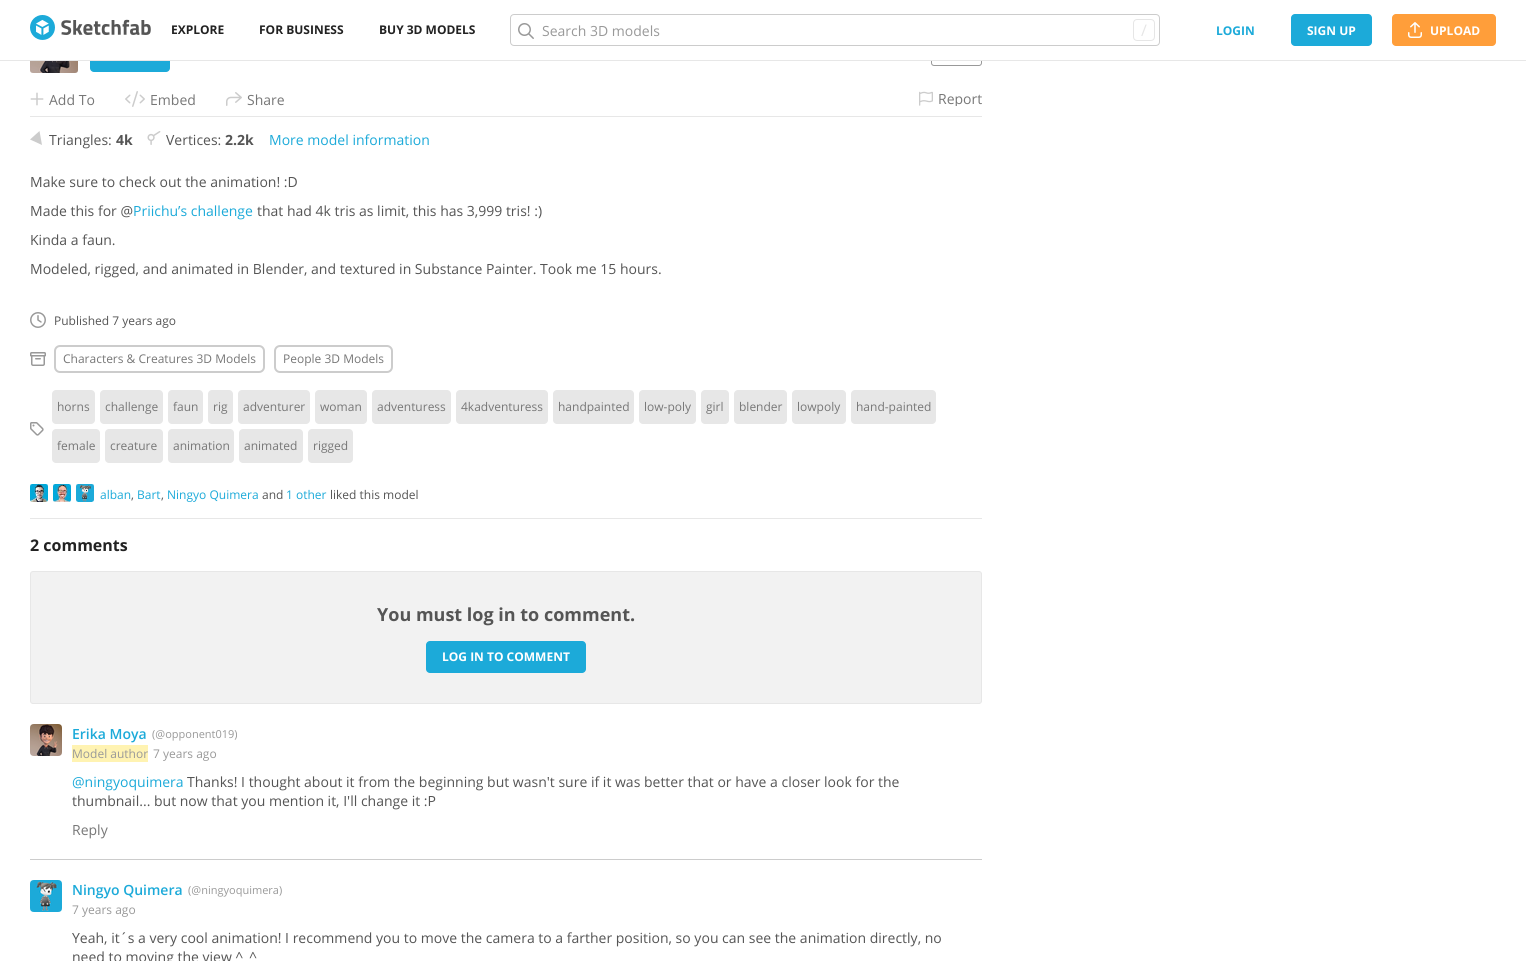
#include <cairo.h>
#include <math.h>
#include <stddef.h>

typedef struct { double x, y; const char *s; } line_t;

static void ink(cairo_t *ctx, unsigned color) {
    cairo_set_source_rgb(ctx, (color >> 16) / 255.0, (color >> 8 & 255) / 255.0, (color & 255) / 255.0);
}

static void round_path(cairo_t *ctx, double x, double y, double w, double h, double r) {
    cairo_new_sub_path(ctx);
    cairo_arc(ctx, x + w - r, y + h - r, r, 0, M_PI / 2);
    cairo_arc(ctx, x + r, y + h - r, r, M_PI / 2, M_PI);
    cairo_arc(ctx, x + r, y + r, r, M_PI, 1.5 * M_PI);
    cairo_arc(ctx, x + w - r, y + r, r, 1.5 * M_PI, 2 * M_PI);
    cairo_close_path(ctx);
}

static void paste(cairo_t *ctx, const char *path, double x, double y, double w, double h) {
    cairo_surface_t *image = cairo_image_surface_create_from_png(path);
    cairo_save(ctx);
    cairo_set_source_surface(ctx, image, x, y);
    cairo_rectangle(ctx, x, y, w, h);
    cairo_fill(ctx);
    cairo_restore(ctx);
    cairo_surface_destroy(image);
}

int main(void) {
    cairo_surface_t *surface = cairo_image_surface_create(CAIRO_FORMAT_RGB24, 1526, 961);
    cairo_t *ctx = cairo_create(surface);
    cairo_font_options_t *options = cairo_font_options_create();
    cairo_font_options_set_hint_metrics(options, CAIRO_HINT_METRICS_OFF);
    cairo_font_options_set_hint_style(options, CAIRO_HINT_STYLE_NONE);
    cairo_set_font_options(ctx, options);
    cairo_set_miter_limit(ctx, 4);
    ink(ctx, 0xFFFFFF);
    cairo_paint(ctx);
    ink(ctx, 0x1CAAD9);
    round_path(ctx, 90, 48, 80, 24, 4);
    cairo_fill(ctx);
    round_path(ctx, 931.5, 32.5, 50, 33, 2.5);
    ink(ctx, 0x999999);
    cairo_set_line_width(ctx, 1);
    cairo_stroke(ctx);
    ink(ctx, 0xFFFFFF);
    cairo_rectangle(ctx, 90, 32, 892, 28);
    cairo_fill(ctx);
    ink(ctx, 0xE7E7E7);
    cairo_rectangle(ctx, 0, 60, 1526, 1);
    cairo_fill(ctx);
    paste(ctx, "media/1.png", 30, 15, 121, 25);
    cairo_select_font_face(ctx, "Open Sans", CAIRO_FONT_SLANT_NORMAL, CAIRO_FONT_WEIGHT_BOLD);
    cairo_set_font_size(ctx, 12);
    ink(ctx, 0x222222);
    {
        static const line_t items[] = {
            {171, 34, "EXPLORE"},
            {259, 34, "FOR BUSINESS"},
            {379, 34, "BUY 3D MODELS"},
        };
        for (size_t i = 0; i < sizeof items / sizeof *items; i++) {
            cairo_move_to(ctx, items[i].x, items[i].y);
            cairo_show_text(ctx, items[i].s);
        }
    }
    round_path(ctx, 510.5, 14.5, 649, 31, 3.5);
    ink(ctx, 0xCCCCCC);
    cairo_stroke(ctx);
    paste(ctx, "media/2.png", 518, 23, 16, 16);
    cairo_select_font_face(ctx, "Open Sans", CAIRO_FONT_SLANT_NORMAL, CAIRO_FONT_WEIGHT_NORMAL);
    cairo_set_font_size(ctx, 14);
    ink(ctx, 0x999999);
    cairo_move_to(ctx, 542, 36);
    cairo_show_text(ctx, "Search 3D models");
    round_path(ctx, 1133.5, 19.5, 21, 21, 3.5);
    ink(ctx, 0xE6E6E6);
    cairo_stroke(ctx);
    cairo_set_font_size(ctx, 16);
    cairo_move_to(ctx, 1141, 36);
    cairo_show_text(ctx, "/");
    cairo_select_font_face(ctx, "Open Sans", CAIRO_FONT_SLANT_NORMAL, CAIRO_FONT_WEIGHT_BOLD);
    cairo_set_font_size(ctx, 12);
    ink(ctx, 0x1CAAD9);
    cairo_move_to(ctx, 1216, 35);
    cairo_show_text(ctx, "LOGIN");
    round_path(ctx, 1291, 14, 81, 32, 4);
    cairo_fill(ctx);
    ink(ctx, 0xFFFFFF);
    cairo_move_to(ctx, 1307, 35);
    cairo_show_text(ctx, "SIGN UP");
    ink(ctx, 0xFF9E3A);
    round_path(ctx, 1392, 14, 104, 32, 4);
    cairo_fill(ctx);
    paste(ctx, "media/3.png", 1408, 22, 14, 16);
    ink(ctx, 0xFFFFFF);
    cairo_move_to(ctx, 1430, 35);
    cairo_show_text(ctx, "UPLOAD");
    paste(ctx, "media/4.png", 30, 61, 48, 12);
    paste(ctx, "media/5.png", 30, 92, 14, 14);
    cairo_select_font_face(ctx, "Open Sans", CAIRO_FONT_SLANT_NORMAL, CAIRO_FONT_WEIGHT_NORMAL);
    cairo_set_font_size(ctx, 14);
    ink(ctx, 0x777777);
    cairo_move_to(ctx, 49, 105);
    cairo_show_text(ctx, "Add To");
    paste(ctx, "media/6.png", 125, 91, 20, 16);
    cairo_move_to(ctx, 150, 105);
    cairo_show_text(ctx, "Embed");
    paste(ctx, "media/7.png", 226, 92, 16, 14);
    cairo_move_to(ctx, 247, 105);
    cairo_show_text(ctx, "Share");
    paste(ctx, "media/8.png", 919, 91, 14, 15);
    cairo_save(ctx);
    cairo_rectangle(ctx, 938, 92, 44, 14);
    cairo_clip(ctx);
    cairo_move_to(ctx, 938, 104);
    cairo_show_text(ctx, "Report");
    cairo_restore(ctx);
    ink(ctx, 0xE7E7E7);
    cairo_rectangle(ctx, 30, 116, 952, 1);
    cairo_fill(ctx);
    cairo_rectangle(ctx, 30, 518, 952, 1);
    cairo_fill(ctx);
    ink(ctx, 0xCCCCCC);
    cairo_new_path(ctx);
    cairo_move_to(ctx, 30, 139.5);
    cairo_line_to(ctx, 42, 145);
    cairo_line_to(ctx, 39.5, 131);
    cairo_close_path(ctx);
    cairo_fill(ctx);
    ink(ctx, 0x555555);
    cairo_move_to(ctx, 49, 145);
    cairo_show_text(ctx, "Triangles:");
    cairo_select_font_face(ctx, "Open Sans", CAIRO_FONT_SLANT_NORMAL, CAIRO_FONT_WEIGHT_BOLD);
    cairo_move_to(ctx, 116, 145);
    cairo_show_text(ctx, "4k");
    paste(ctx, "media/9.png", 147, 131, 14, 14);
    cairo_select_font_face(ctx, "Open Sans", CAIRO_FONT_SLANT_NORMAL, CAIRO_FONT_WEIGHT_NORMAL);
    cairo_move_to(ctx, 166, 145);
    cairo_show_text(ctx, "Vertices:");
    cairo_select_font_face(ctx, "Open Sans", CAIRO_FONT_SLANT_NORMAL, CAIRO_FONT_WEIGHT_BOLD);
    cairo_move_to(ctx, 225, 145);
    cairo_show_text(ctx, "2.2k");
    cairo_select_font_face(ctx, "Open Sans", CAIRO_FONT_SLANT_NORMAL, CAIRO_FONT_WEIGHT_NORMAL);
    ink(ctx, 0x1CAAD9);
    cairo_move_to(ctx, 269, 145);
    cairo_show_text(ctx, "More model information");
    ink(ctx, 0x555555);
    cairo_move_to(ctx, 30, 187);
    cairo_show_text(ctx, "Make sure to check out the animation! :D");
    cairo_move_to(ctx, 30, 216);
    cairo_show_text(ctx, "Made this for @");
    ink(ctx, 0x1CAAD9);
    cairo_move_to(ctx, 133, 216);
    cairo_show_text(ctx, "Priichu’s challenge");
    ink(ctx, 0x555555);
    {
        static const line_t items[] = {
            {257, 216, "that had 4k tris as limit, this has 3,999 tris! :)"},
            {30, 245, "Kinda a faun."},
            {30, 274, "Modeled, rigged, and animated in Blender, and textured in Substance Painter. Took me 15 hours."},
        };
        for (size_t i = 0; i < sizeof items / sizeof *items; i++) {
            cairo_move_to(ctx, items[i].x, items[i].y);
            cairo_show_text(ctx, items[i].s);
        }
    }
    paste(ctx, "media/10.png", 30, 312, 16, 16);
    cairo_set_font_size(ctx, 12);
    cairo_move_to(ctx, 54, 325);
    cairo_show_text(ctx, "Published 7 years ago");
    paste(ctx, "media/11.png", 30, 352, 16, 14);
    round_path(ctx, 55, 346, 209, 26, 5);
    ink(ctx, 0xCCCCCC);
    cairo_set_line_width(ctx, 2);
    cairo_stroke(ctx);
    ink(ctx, 0x777777);
    cairo_move_to(ctx, 63, 363);
    cairo_show_text(ctx, "Characters & Creatures 3D Models");
    round_path(ctx, 275, 346, 117, 26, 5);
    ink(ctx, 0xCCCCCC);
    cairo_stroke(ctx);
    ink(ctx, 0x777777);
    cairo_move_to(ctx, 283, 363);
    cairo_show_text(ctx, "People 3D Models");
    paste(ctx, "media/12.png", 30, 422, 14, 14);
    ink(ctx, 0xE7E7E7);
    round_path(ctx, 52, 390, 43, 34, 4);
    cairo_fill(ctx);
    ink(ctx, 0x777777);
    cairo_move_to(ctx, 57, 411);
    cairo_show_text(ctx, "horns");
    ink(ctx, 0xE7E7E7);
    round_path(ctx, 100, 390, 63, 34, 4);
    cairo_fill(ctx);
    ink(ctx, 0x777777);
    cairo_move_to(ctx, 105, 411);
    cairo_show_text(ctx, "challenge");
    ink(ctx, 0xE7E7E7);
    round_path(ctx, 168, 390, 35, 34, 4);
    cairo_fill(ctx);
    ink(ctx, 0x777777);
    cairo_move_to(ctx, 173, 411);
    cairo_show_text(ctx, "faun");
    ink(ctx, 0xE7E7E7);
    round_path(ctx, 208, 390, 25, 34, 4);
    cairo_fill(ctx);
    ink(ctx, 0x777777);
    cairo_move_to(ctx, 213, 411);
    cairo_show_text(ctx, "rig");
    ink(ctx, 0xE7E7E7);
    round_path(ctx, 238, 390, 72, 34, 4);
    cairo_fill(ctx);
    ink(ctx, 0x777777);
    cairo_move_to(ctx, 243, 411);
    cairo_show_text(ctx, "adventurer");
    ink(ctx, 0xE7E7E7);
    round_path(ctx, 315, 390, 52, 34, 4);
    cairo_fill(ctx);
    ink(ctx, 0x777777);
    cairo_move_to(ctx, 320, 411);
    cairo_show_text(ctx, "woman");
    ink(ctx, 0xE7E7E7);
    round_path(ctx, 372, 390, 79, 34, 4);
    cairo_fill(ctx);
    ink(ctx, 0x777777);
    cairo_move_to(ctx, 377, 411);
    cairo_show_text(ctx, "adventuress");
    ink(ctx, 0xE7E7E7);
    round_path(ctx, 456, 390, 92, 34, 4);
    cairo_fill(ctx);
    ink(ctx, 0x777777);
    cairo_move_to(ctx, 461, 411);
    cairo_show_text(ctx, "4kadventuress");
    ink(ctx, 0xE7E7E7);
    round_path(ctx, 553, 390, 81, 34, 4);
    cairo_fill(ctx);
    ink(ctx, 0x777777);
    cairo_move_to(ctx, 558, 411);
    cairo_show_text(ctx, "handpainted");
    ink(ctx, 0xE7E7E7);
    round_path(ctx, 639, 390, 57, 34, 4);
    cairo_fill(ctx);
    ink(ctx, 0x777777);
    cairo_move_to(ctx, 644, 411);
    cairo_show_text(ctx, "low-poly");
    ink(ctx, 0xE7E7E7);
    round_path(ctx, 701, 390, 28, 34, 4);
    cairo_fill(ctx);
    ink(ctx, 0x777777);
    cairo_move_to(ctx, 706, 411);
    cairo_show_text(ctx, "girl");
    ink(ctx, 0xE7E7E7);
    round_path(ctx, 734, 390, 53, 34, 4);
    cairo_fill(ctx);
    ink(ctx, 0x777777);
    cairo_move_to(ctx, 739, 411);
    cairo_show_text(ctx, "blender");
    ink(ctx, 0xE7E7E7);
    round_path(ctx, 792, 390, 54, 34, 4);
    cairo_fill(ctx);
    ink(ctx, 0x777777);
    cairo_move_to(ctx, 797, 411);
    cairo_show_text(ctx, "lowpoly");
    ink(ctx, 0xE7E7E7);
    round_path(ctx, 851, 390, 85, 34, 4);
    cairo_fill(ctx);
    ink(ctx, 0x777777);
    cairo_move_to(ctx, 856, 411);
    cairo_show_text(ctx, "hand-painted");
    ink(ctx, 0xE7E7E7);
    round_path(ctx, 52, 429, 48, 34, 4);
    cairo_fill(ctx);
    ink(ctx, 0x777777);
    cairo_move_to(ctx, 57, 450);
    cairo_show_text(ctx, "female");
    ink(ctx, 0xE7E7E7);
    round_path(ctx, 105, 429, 58, 34, 4);
    cairo_fill(ctx);
    ink(ctx, 0x777777);
    cairo_move_to(ctx, 110, 450);
    cairo_show_text(ctx, "creature");
    ink(ctx, 0xE7E7E7);
    round_path(ctx, 168, 429, 66, 34, 4);
    cairo_fill(ctx);
    ink(ctx, 0x777777);
    cairo_move_to(ctx, 173, 450);
    cairo_show_text(ctx, "animation");
    ink(ctx, 0xE7E7E7);
    round_path(ctx, 239, 429, 64, 34, 4);
    cairo_fill(ctx);
    ink(ctx, 0x777777);
    cairo_move_to(ctx, 244, 450);
    cairo_show_text(ctx, "animated");
    ink(ctx, 0xE7E7E7);
    round_path(ctx, 308, 429, 45, 34, 4);
    cairo_fill(ctx);
    ink(ctx, 0x777777);
    cairo_move_to(ctx, 313, 450);
    cairo_show_text(ctx, "rigged");
    paste(ctx, "media/13.png", 30, 484, 18, 18);
    paste(ctx, "media/14.png", 53, 484, 18, 18);
    paste(ctx, "media/15.png", 76, 484, 18, 18);
    ink(ctx, 0x1CAAD9);
    cairo_move_to(ctx, 100, 499);
    cairo_show_text(ctx, "alban");
    ink(ctx, 0x555555);
    cairo_move_to(ctx, 131, 499);
    cairo_show_text(ctx, ",");
    ink(ctx, 0x1CAAD9);
    cairo_move_to(ctx, 137, 499);
    cairo_show_text(ctx, "Bart");
    ink(ctx, 0x555555);
    cairo_move_to(ctx, 161, 499);
    cairo_show_text(ctx, ",");
    ink(ctx, 0x1CAAD9);
    cairo_move_to(ctx, 167, 499);
    cairo_show_text(ctx, "Ningyo Quimera");
    ink(ctx, 0x555555);
    cairo_move_to(ctx, 262, 499);
    cairo_show_text(ctx, "and");
    ink(ctx, 0x1CAAD9);
    cairo_move_to(ctx, 286, 499);
    cairo_show_text(ctx, "1 other");
    ink(ctx, 0x555555);
    cairo_move_to(ctx, 330, 499);
    cairo_show_text(ctx, "liked this model");
    cairo_select_font_face(ctx, "Open Sans", CAIRO_FONT_SLANT_NORMAL, CAIRO_FONT_WEIGHT_BOLD);
    cairo_set_font_size(ctx, 16);
    ink(ctx, 0x222222);
    cairo_move_to(ctx, 30, 551);
    cairo_show_text(ctx, "2 comments");
    ink(ctx, 0xF2F2F2);
    round_path(ctx, 30.5, 571.5, 951, 132, 2.5);
    cairo_fill_preserve(ctx);
    ink(ctx, 0xE7E7E7);
    cairo_set_line_width(ctx, 1);
    cairo_stroke(ctx);
    cairo_set_font_size(ctx, 18);
    ink(ctx, 0x555555);
    cairo_move_to(ctx, 377, 621);
    cairo_show_text(ctx, "You must log in to comment.");
    ink(ctx, 0x1CAAD9);
    round_path(ctx, 426, 641, 160, 32, 4);
    cairo_fill(ctx);
    cairo_set_font_size(ctx, 12);
    ink(ctx, 0xFFFFFF);
    cairo_move_to(ctx, 442, 661);
    cairo_show_text(ctx, "LOG IN TO COMMENT");
    paste(ctx, "media/16.png", 30, 724, 32, 32);
    cairo_select_font_face(ctx, "Open Sans SemiBold", CAIRO_FONT_SLANT_NORMAL, CAIRO_FONT_WEIGHT_NORMAL);
    cairo_set_font_size(ctx, 14);
    ink(ctx, 0x1CAAD9);
    cairo_move_to(ctx, 72, 739);
    cairo_show_text(ctx, "Erika Moya");
    cairo_select_font_face(ctx, "Open Sans", CAIRO_FONT_SLANT_NORMAL, CAIRO_FONT_WEIGHT_NORMAL);
    cairo_set_font_size(ctx, 11);
    ink(ctx, 0x999999);
    cairo_move_to(ctx, 152, 738);
    cairo_show_text(ctx, "(@opponent019)");
    ink(ctx, 0xFFF3B2);
    cairo_rectangle(ctx, 72, 745, 76, 17);
    cairo_fill(ctx);
    cairo_set_font_size(ctx, 12);
    ink(ctx, 0x999999);
    cairo_move_to(ctx, 72, 758);
    cairo_show_text(ctx, "Model author");
    cairo_move_to(ctx, 153, 758);
    cairo_show_text(ctx, "7 years ago");
    cairo_set_font_size(ctx, 14);
    ink(ctx, 0x1CAAD9);
    cairo_move_to(ctx, 72, 787);
    cairo_show_text(ctx, "@ningyoquimera");
    ink(ctx, 0x555555);
    cairo_move_to(ctx, 187, 787);
    cairo_show_text(ctx, "Thanks! I thought about it from the beginning but wasn't sure if it was better that or have a closer look for the");
    cairo_move_to(ctx, 72, 806);
    cairo_show_text(ctx, "thumbnail... but now that you mention it, I'll change it :P");
    ink(ctx, 0x777777);
    cairo_move_to(ctx, 72, 835);
    cairo_show_text(ctx, "Reply");
    ink(ctx, 0xCCCCCC);
    cairo_rectangle(ctx, 30, 859, 952, 1);
    cairo_fill(ctx);
    paste(ctx, "media/17.png", 30, 880, 32, 32);
    cairo_select_font_face(ctx, "Open Sans SemiBold", CAIRO_FONT_SLANT_NORMAL, CAIRO_FONT_WEIGHT_NORMAL);
    ink(ctx, 0x1CAAD9);
    cairo_move_to(ctx, 72, 895);
    cairo_show_text(ctx, "Ningyo Quimera");
    cairo_select_font_face(ctx, "Open Sans", CAIRO_FONT_SLANT_NORMAL, CAIRO_FONT_WEIGHT_NORMAL);
    cairo_set_font_size(ctx, 11);
    ink(ctx, 0x999999);
    cairo_move_to(ctx, 188, 894);
    cairo_show_text(ctx, "(@ningyoquimera)");
    cairo_set_font_size(ctx, 12);
    cairo_move_to(ctx, 72, 914);
    cairo_show_text(ctx, "7 years ago");
    cairo_set_font_size(ctx, 14);
    ink(ctx, 0x555555);
    cairo_move_to(ctx, 72, 943);
    cairo_show_text(ctx, "Yeah, it´s a very cool animation! I recommend you to move the camera to a farther position, so you can see the animation directly, no");
    cairo_move_to(ctx, 72, 962);
    cairo_show_text(ctx, "need to moving the view ^_^");
    cairo_surface_write_to_png(surface, "image.png");
    cairo_font_options_destroy(options);
    cairo_destroy(ctx);
    cairo_surface_destroy(surface);
    return 0;
}
